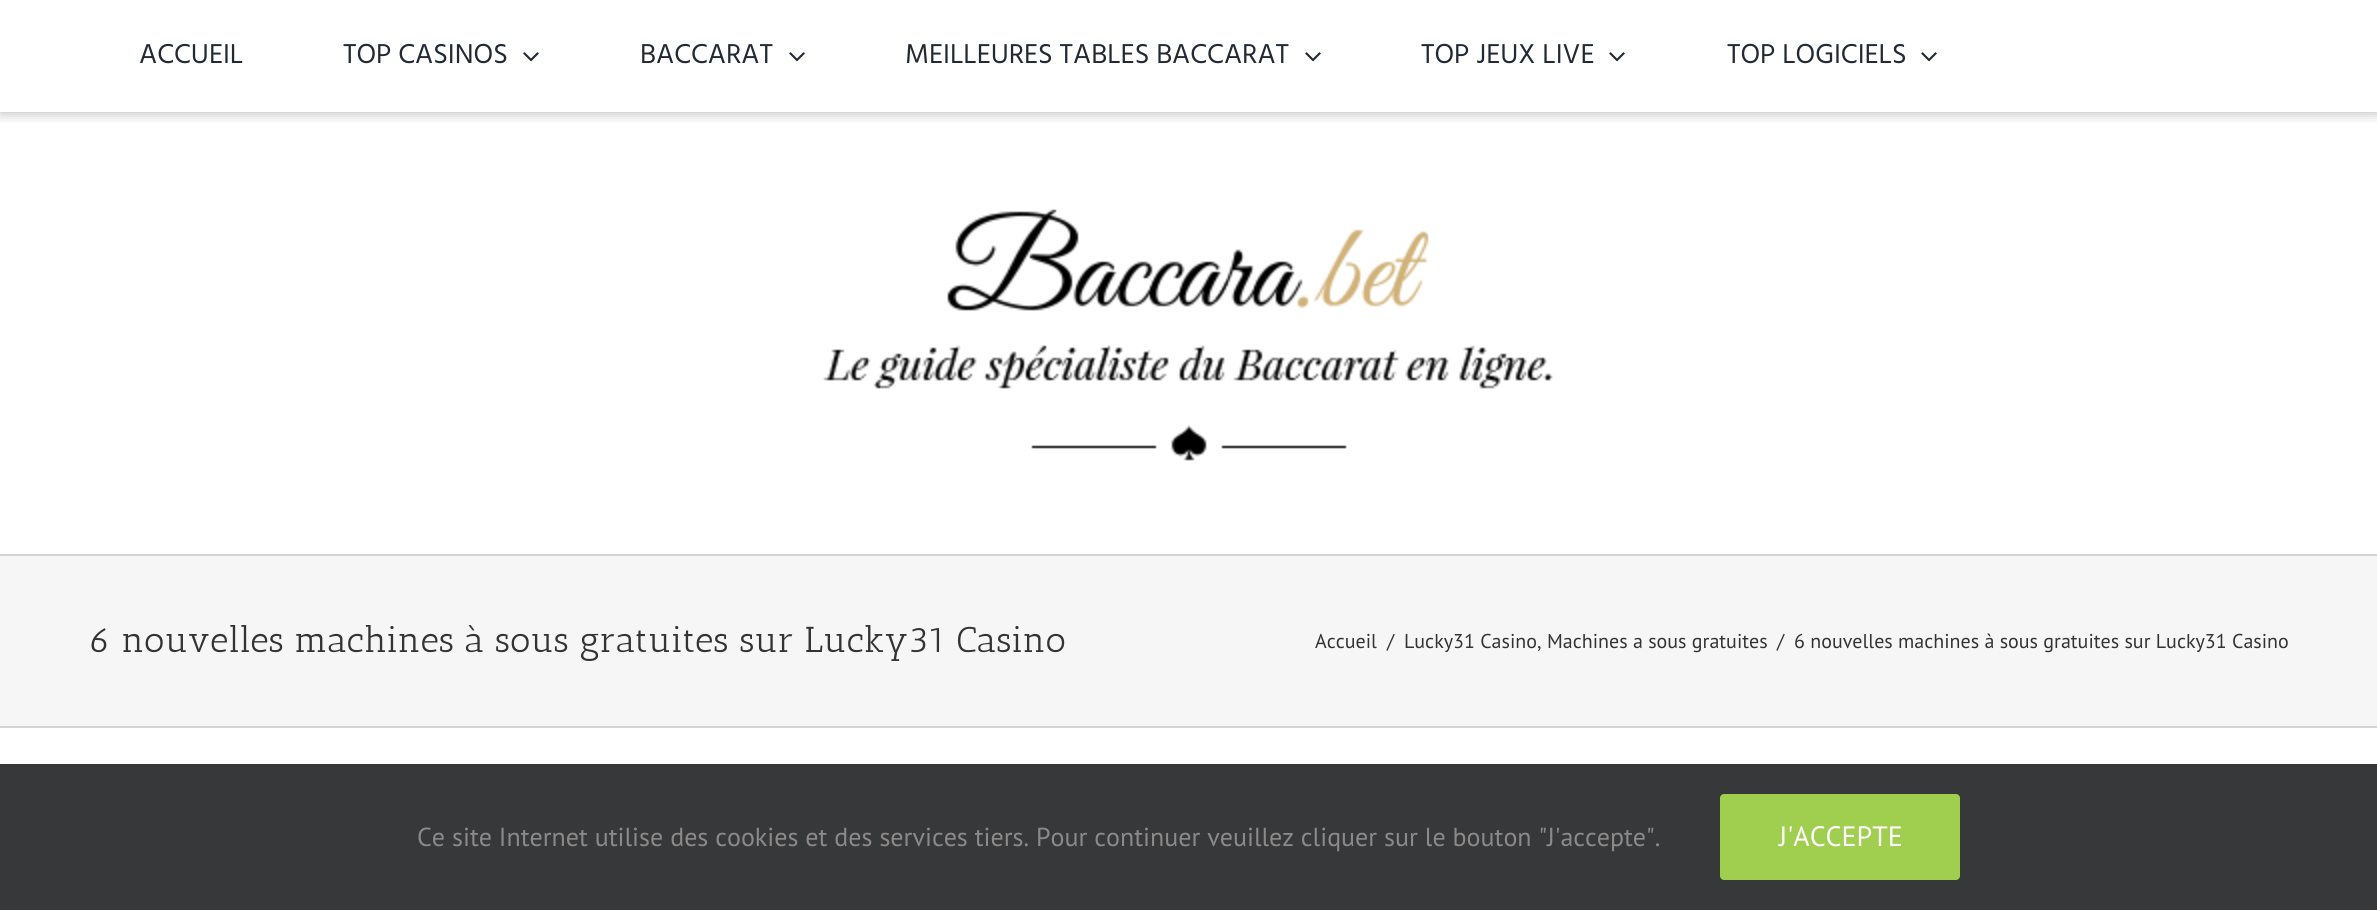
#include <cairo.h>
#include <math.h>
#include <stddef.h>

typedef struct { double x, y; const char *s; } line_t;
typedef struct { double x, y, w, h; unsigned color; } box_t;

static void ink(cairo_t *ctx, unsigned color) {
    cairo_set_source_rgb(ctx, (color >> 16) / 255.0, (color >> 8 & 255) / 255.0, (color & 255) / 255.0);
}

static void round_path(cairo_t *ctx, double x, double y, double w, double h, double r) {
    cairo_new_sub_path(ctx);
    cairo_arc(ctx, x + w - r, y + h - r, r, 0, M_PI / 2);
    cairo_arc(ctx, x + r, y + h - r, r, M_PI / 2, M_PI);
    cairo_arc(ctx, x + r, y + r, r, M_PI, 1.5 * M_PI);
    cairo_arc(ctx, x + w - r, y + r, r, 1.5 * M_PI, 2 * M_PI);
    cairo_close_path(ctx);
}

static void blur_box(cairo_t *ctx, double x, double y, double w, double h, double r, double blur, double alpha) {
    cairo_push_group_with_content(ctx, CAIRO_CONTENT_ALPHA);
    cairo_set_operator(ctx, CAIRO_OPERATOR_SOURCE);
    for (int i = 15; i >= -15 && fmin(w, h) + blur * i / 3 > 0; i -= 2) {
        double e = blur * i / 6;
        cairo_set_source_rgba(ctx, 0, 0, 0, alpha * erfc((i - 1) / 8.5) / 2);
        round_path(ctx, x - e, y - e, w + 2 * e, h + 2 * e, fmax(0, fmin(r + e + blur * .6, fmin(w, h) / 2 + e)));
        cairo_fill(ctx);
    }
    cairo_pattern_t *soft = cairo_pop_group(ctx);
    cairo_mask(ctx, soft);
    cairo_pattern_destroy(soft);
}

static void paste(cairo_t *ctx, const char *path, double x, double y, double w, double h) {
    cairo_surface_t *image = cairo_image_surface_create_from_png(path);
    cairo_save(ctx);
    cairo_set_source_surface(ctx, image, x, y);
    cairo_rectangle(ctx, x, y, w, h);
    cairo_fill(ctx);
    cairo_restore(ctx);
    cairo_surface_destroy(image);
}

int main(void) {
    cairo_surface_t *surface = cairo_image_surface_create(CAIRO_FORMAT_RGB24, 2377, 910);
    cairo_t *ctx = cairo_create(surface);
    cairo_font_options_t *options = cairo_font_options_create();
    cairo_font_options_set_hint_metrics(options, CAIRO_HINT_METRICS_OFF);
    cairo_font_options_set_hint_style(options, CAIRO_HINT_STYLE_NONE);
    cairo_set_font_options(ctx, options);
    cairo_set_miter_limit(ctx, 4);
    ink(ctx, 0xFFFFFF);
    cairo_paint(ctx);
    cairo_save(ctx);
    cairo_rectangle(ctx, 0, 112, 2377, 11);
    cairo_clip(ctx);
    ink(ctx, 0x202124);
    blur_box(ctx, 0, 2, 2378, 112, 0, 6, 0.28);
    cairo_restore(ctx);
    cairo_select_font_face(ctx, "Hind", CAIRO_FONT_SLANT_NORMAL, CAIRO_FONT_WEIGHT_NORMAL);
    cairo_set_font_size(ctx, 28);
    ink(ctx, 0x212934);
    cairo_move_to(ctx, 139, 63);
    cairo_show_text(ctx, "ACCUEIL");
    cairo_move_to(ctx, 343, 63);
    cairo_show_text(ctx, "TOP CASINOS");
    paste(ctx, "media/1.png", 523, 52, 16, 10);
    cairo_move_to(ctx, 640, 63);
    cairo_show_text(ctx, "BACCARAT");
    paste(ctx, "media/1.png", 789, 52, 16, 10);
    cairo_move_to(ctx, 905, 63);
    cairo_show_text(ctx, "MEILLEURES TABLES BACCARAT");
    paste(ctx, "media/1.png", 1305, 52, 16, 10);
    cairo_move_to(ctx, 1421, 63);
    cairo_show_text(ctx, "TOP JEUX LIVE");
    paste(ctx, "media/1.png", 1609, 52, 16, 10);
    cairo_move_to(ctx, 1727, 63);
    cairo_show_text(ctx, "TOP LOGICIELS");
    paste(ctx, "media/1.png", 1921, 52, 16, 10);
    paste(ctx, "media/2.png", 823, 209, 730, 252);
    {
        static const box_t items[] = {
            {0, 556, 2377, 170, 0xF6F6F6},
            {0, 554, 2377, 2, 0xD2D3D4},
            {0, 726, 2377, 2, 0xD2D3D4},
        };
        for (size_t i = 0; i < sizeof items / sizeof *items; i++) {
            ink(ctx, items[i].color);
            cairo_rectangle(ctx, items[i].x, items[i].y, items[i].w, items[i].h);
            cairo_fill(ctx);
        }
    }
    cairo_select_font_face(ctx, "Antic Slab", CAIRO_FONT_SLANT_NORMAL, CAIRO_FONT_WEIGHT_NORMAL);
    cairo_set_font_size(ctx, 36);
    ink(ctx, 0x333333);
    cairo_move_to(ctx, 89, 652);
    cairo_show_text(ctx, "6 nouvelles machines à sous gratuites sur Lucky31 Casino");
    cairo_select_font_face(ctx, "PT Sans", CAIRO_FONT_SLANT_NORMAL, CAIRO_FONT_WEIGHT_NORMAL);
    cairo_set_font_size(ctx, 20);
    {
        static const line_t items[] = {
            {1315, 648, "Accueil"},
            {1387, 648, "/"},
            {1404, 648, "Lucky31 Casino,"},
            {1547, 648, "Machines a sous gratuites"},
            {1777, 648, "/"},
            {1794, 648, "6 nouvelles machines à sous gratuites sur Lucky31 Casino"},
        };
        for (size_t i = 0; i < sizeof items / sizeof *items; i++) {
            cairo_move_to(ctx, items[i].x, items[i].y);
            cairo_show_text(ctx, items[i].s);
        }
    }
    ink(ctx, 0x363839);
    cairo_rectangle(ctx, 0, 764, 2377, 146);
    cairo_fill(ctx);
    cairo_set_font_size(ctx, 26);
    ink(ctx, 0x8C8989);
    cairo_move_to(ctx, 417, 846);
    cairo_show_text(ctx, "Ce site Internet utilise des cookies et des services tiers. Pour continuer veuillez cliquer sur le bouton \"J'accepte\".");
    ink(ctx, 0xA0CE4E);
    round_path(ctx, 1720, 794, 240, 86, 4);
    cairo_fill(ctx);
    cairo_set_font_size(ctx, 28);
    ink(ctx, 0xFFFFFF);
    cairo_move_to(ctx, 1779, 846);
    cairo_show_text(ctx, "J'ACCEPTE");
    cairo_surface_write_to_png(surface, "image.png");
    cairo_font_options_destroy(options);
    cairo_destroy(ctx);
    cairo_surface_destroy(surface);
    return 0;
}
